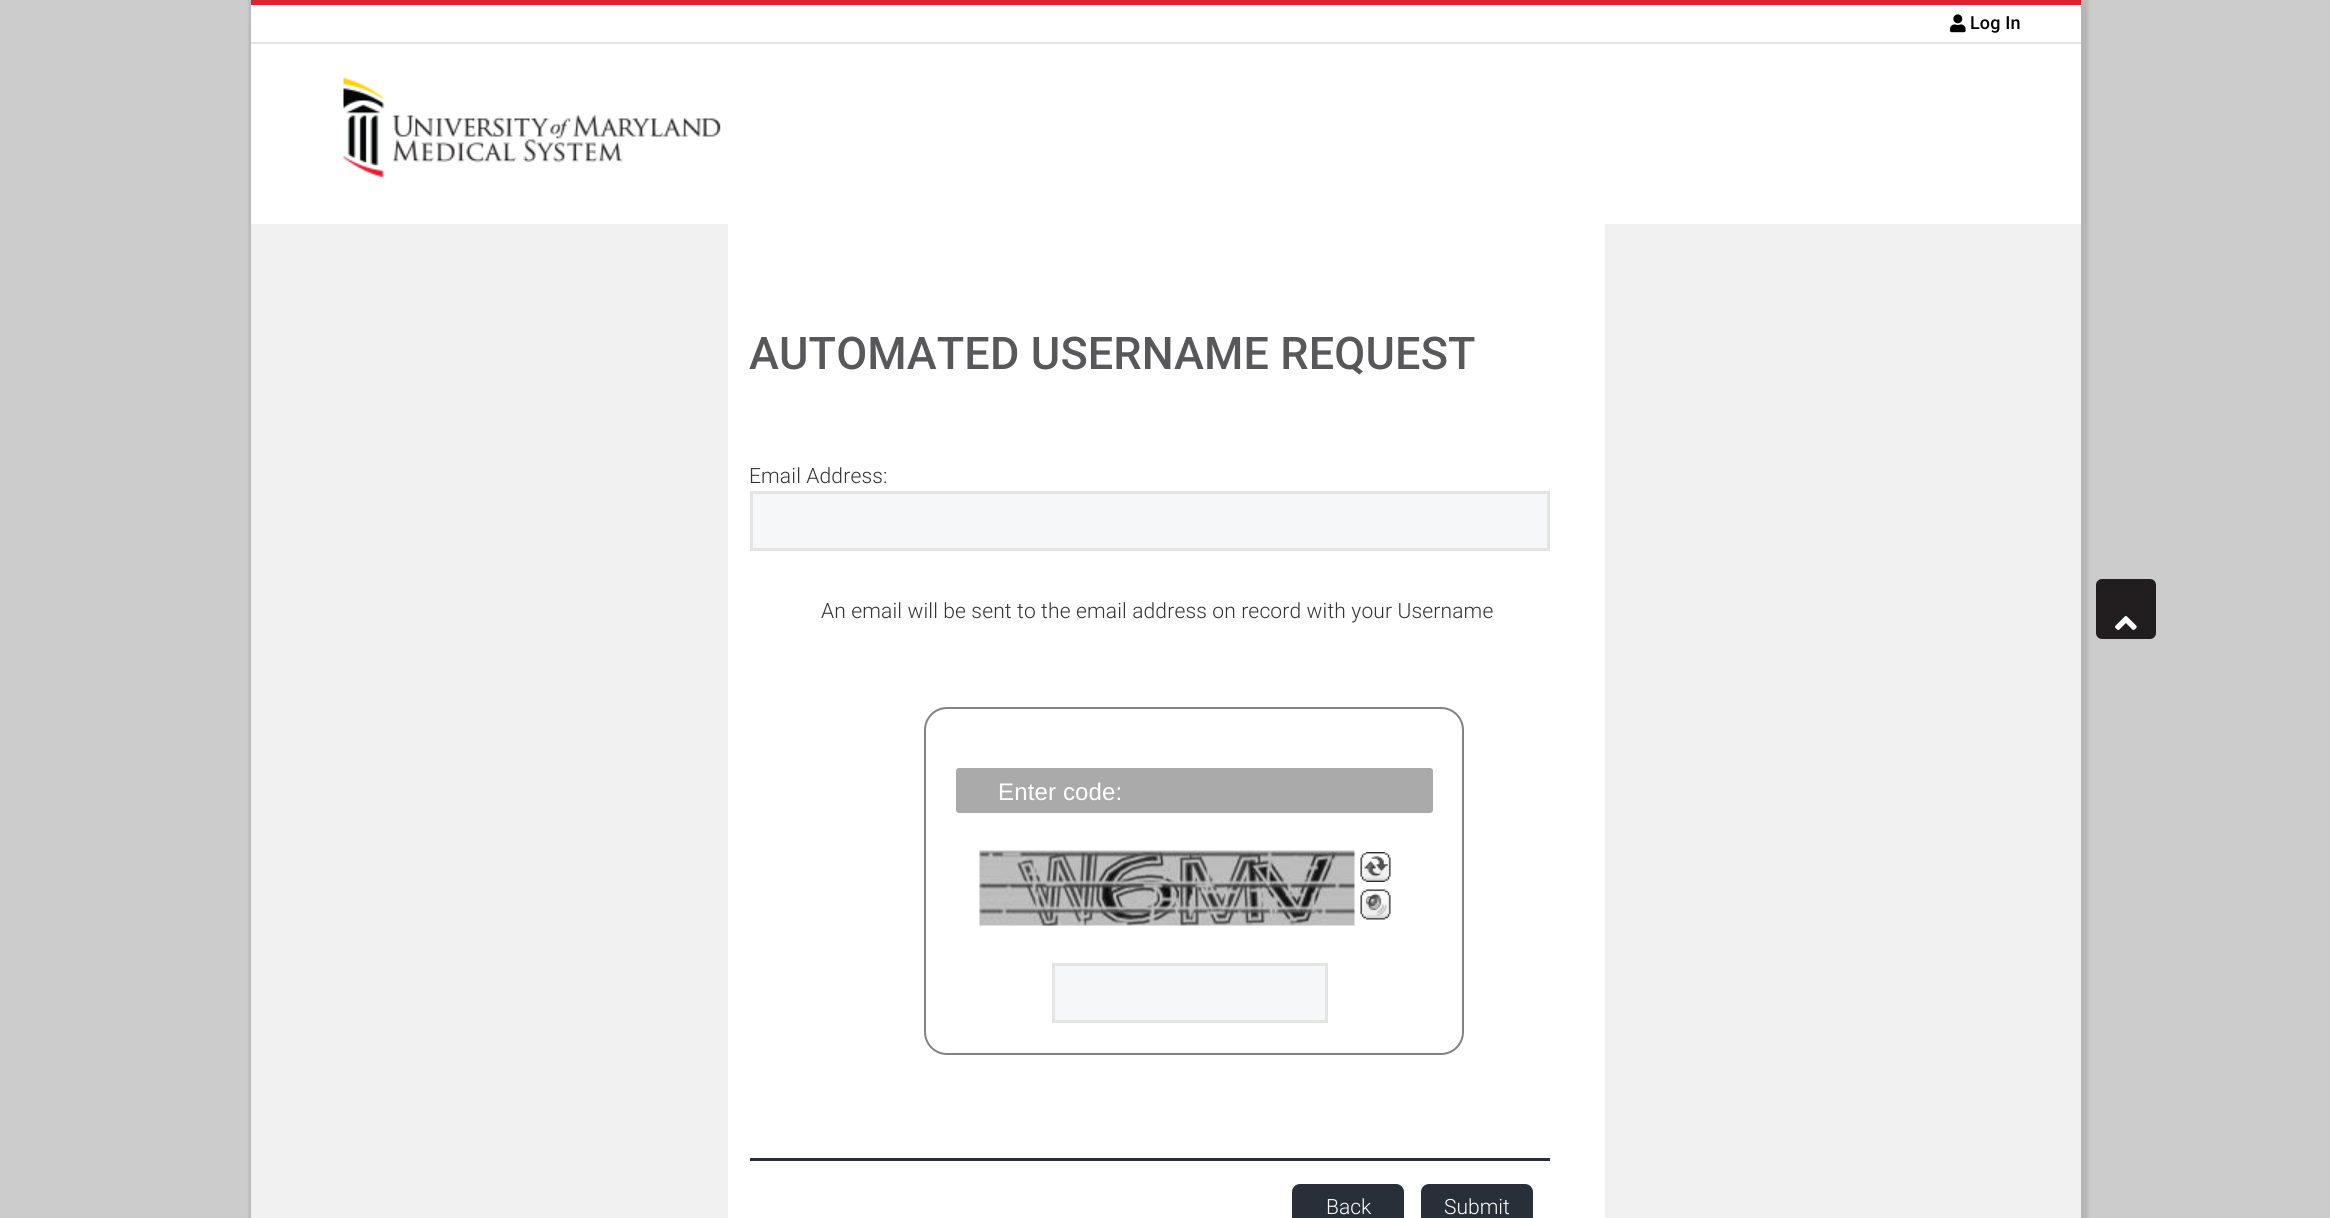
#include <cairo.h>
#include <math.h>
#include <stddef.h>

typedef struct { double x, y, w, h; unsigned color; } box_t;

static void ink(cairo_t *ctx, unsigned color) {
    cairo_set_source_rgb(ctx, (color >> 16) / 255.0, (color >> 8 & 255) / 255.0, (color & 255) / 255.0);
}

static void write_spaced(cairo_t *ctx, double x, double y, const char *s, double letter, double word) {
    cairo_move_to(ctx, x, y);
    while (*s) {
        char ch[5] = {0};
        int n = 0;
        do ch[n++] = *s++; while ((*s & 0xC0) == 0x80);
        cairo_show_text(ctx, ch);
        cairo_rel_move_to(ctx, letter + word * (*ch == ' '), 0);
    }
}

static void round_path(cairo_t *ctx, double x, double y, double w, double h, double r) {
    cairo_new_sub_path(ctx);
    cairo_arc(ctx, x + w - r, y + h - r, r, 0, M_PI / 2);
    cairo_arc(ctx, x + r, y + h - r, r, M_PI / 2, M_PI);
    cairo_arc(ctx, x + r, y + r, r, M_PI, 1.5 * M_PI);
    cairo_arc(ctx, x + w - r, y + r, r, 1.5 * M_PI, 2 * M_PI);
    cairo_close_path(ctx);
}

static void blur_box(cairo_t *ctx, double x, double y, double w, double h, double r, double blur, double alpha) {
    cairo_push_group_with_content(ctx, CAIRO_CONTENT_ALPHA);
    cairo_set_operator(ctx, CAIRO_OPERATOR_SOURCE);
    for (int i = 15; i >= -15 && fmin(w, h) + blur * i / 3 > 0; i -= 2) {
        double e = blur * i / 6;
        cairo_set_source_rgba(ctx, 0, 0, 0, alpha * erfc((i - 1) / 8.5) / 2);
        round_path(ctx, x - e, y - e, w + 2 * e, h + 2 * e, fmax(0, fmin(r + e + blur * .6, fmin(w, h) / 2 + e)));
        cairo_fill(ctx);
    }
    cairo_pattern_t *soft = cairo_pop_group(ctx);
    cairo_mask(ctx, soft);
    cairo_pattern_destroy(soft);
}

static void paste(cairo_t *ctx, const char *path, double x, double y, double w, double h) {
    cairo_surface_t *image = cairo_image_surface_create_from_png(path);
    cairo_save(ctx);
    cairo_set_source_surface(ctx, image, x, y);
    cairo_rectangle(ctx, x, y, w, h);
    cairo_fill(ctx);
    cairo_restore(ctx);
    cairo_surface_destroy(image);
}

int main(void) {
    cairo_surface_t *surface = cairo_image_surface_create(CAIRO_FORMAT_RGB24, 2330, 1218);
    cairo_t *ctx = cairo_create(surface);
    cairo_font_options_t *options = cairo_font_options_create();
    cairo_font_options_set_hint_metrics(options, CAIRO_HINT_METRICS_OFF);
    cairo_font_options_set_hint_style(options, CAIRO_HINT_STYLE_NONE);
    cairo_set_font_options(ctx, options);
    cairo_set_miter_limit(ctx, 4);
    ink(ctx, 0xCCCCCC);
    cairo_paint(ctx);
    ink(ctx, 0xB5B5B5);
    blur_box(ctx, 249, 0, 1839, 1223, 0, 1.5, 1);
    {
        static const box_t items[] = {
            {251, 0, 1830, 5, 0xDA262F},
            {251, 5, 1830, 219, 0xFFFFFF},
            {251, 42, 1830, 2, 0xE2E6E7},
        };
        for (size_t i = 0; i < sizeof items / sizeof *items; i++) {
            ink(ctx, items[i].color);
            cairo_rectangle(ctx, items[i].x, items[i].y, items[i].w, items[i].h);
            cairo_fill(ctx);
        }
    }
    paste(ctx, "media/1.png", 1950, 14, 16, 19);
    cairo_select_font_face(ctx, "Roboto Medium", CAIRO_FONT_SLANT_NORMAL, CAIRO_FONT_WEIGHT_NORMAL);
    cairo_set_font_size(ctx, 18);
    ink(ctx, 0x000000);
    write_spaced(ctx, 1970, 29, "Log In", 0.15, 0);
    paste(ctx, "media/2.png", 343, 77, 378, 101);
    ink(ctx, 0xF1F1F1);
    cairo_rectangle(ctx, 251, 224, 1830, 994);
    cairo_fill(ctx);
    ink(ctx, 0xFFFFFF);
    cairo_rectangle(ctx, 728, 224, 877, 994);
    cairo_fill(ctx);
    cairo_set_font_size(ctx, 45);
    ink(ctx, 0x58585A);
    write_spaced(ctx, 749, 369, "AUTOMATED USERNAME REQUEST", 0.15, 0);
    cairo_select_font_face(ctx, "Roboto Light", CAIRO_FONT_SLANT_NORMAL, CAIRO_FONT_WEIGHT_NORMAL);
    cairo_set_font_size(ctx, 21);
    ink(ctx, 0x333333);
    write_spaced(ctx, 749, 483, "Email Address:", 0.15, 0);
    ink(ctx, 0xF5F7F8);
    cairo_rectangle(ctx, 751.5, 492.5, 797, 57);
    cairo_fill_preserve(ctx);
    ink(ctx, 0xE4E4E2);
    cairo_set_line_width(ctx, 3);
    cairo_stroke(ctx);
    ink(ctx, 0x333333);
    write_spaced(ctx, 821, 618, "An email will be sent to the email address on record with your Username", 0.15, 0);
    round_path(ctx, 925, 708, 538, 346, 22);
    ink(ctx, 0x828282);
    cairo_set_line_width(ctx, 2);
    cairo_stroke(ctx);
    ink(ctx, 0xAAAAAA);
    round_path(ctx, 956, 768, 477, 45, 3);
    cairo_fill(ctx);
    cairo_select_font_face(ctx, "Liberation Sans", CAIRO_FONT_SLANT_NORMAL, CAIRO_FONT_WEIGHT_NORMAL);
    cairo_set_font_size(ctx, 24);
    ink(ctx, 0xFFFFFF);
    write_spaced(ctx, 998, 800, "Enter code:", 0.15, 0);
    paste(ctx, "media/3.png", 979, 850, 376, 76);
    paste(ctx, "media/4.png", 1360, 852, 31, 30);
    paste(ctx, "media/5.png", 1360, 889, 31, 31);
    ink(ctx, 0xF5F7F8);
    cairo_rectangle(ctx, 1053.5, 964.5, 273, 57);
    cairo_fill_preserve(ctx);
    ink(ctx, 0xE4E4E2);
    cairo_set_line_width(ctx, 3);
    cairo_stroke(ctx);
    ink(ctx, 0x292F38);
    cairo_rectangle(ctx, 750, 1158, 800, 3);
    cairo_fill(ctx);
    round_path(ctx, 1292, 1184, 112, 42, 8);
    cairo_fill(ctx);
    cairo_select_font_face(ctx, "Roboto Light", CAIRO_FONT_SLANT_NORMAL, CAIRO_FONT_WEIGHT_NORMAL);
    cairo_set_font_size(ctx, 21);
    ink(ctx, 0xFFFFFF);
    cairo_move_to(ctx, 1326, 1214);
    cairo_show_text(ctx, "Back");
    ink(ctx, 0x292F38);
    round_path(ctx, 1421, 1184, 112, 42, 8);
    cairo_fill(ctx);
    ink(ctx, 0xFFFFFF);
    cairo_move_to(ctx, 1444, 1214);
    cairo_show_text(ctx, "Submit");
    ink(ctx, 0x221E1F);
    round_path(ctx, 2096, 579, 60, 60, 6);
    cairo_fill(ctx);
    paste(ctx, "media/6.png", 2115, 616, 22, 14);
    cairo_surface_write_to_png(surface, "image.png");
    cairo_font_options_destroy(options);
    cairo_destroy(ctx);
    cairo_surface_destroy(surface);
    return 0;
}
